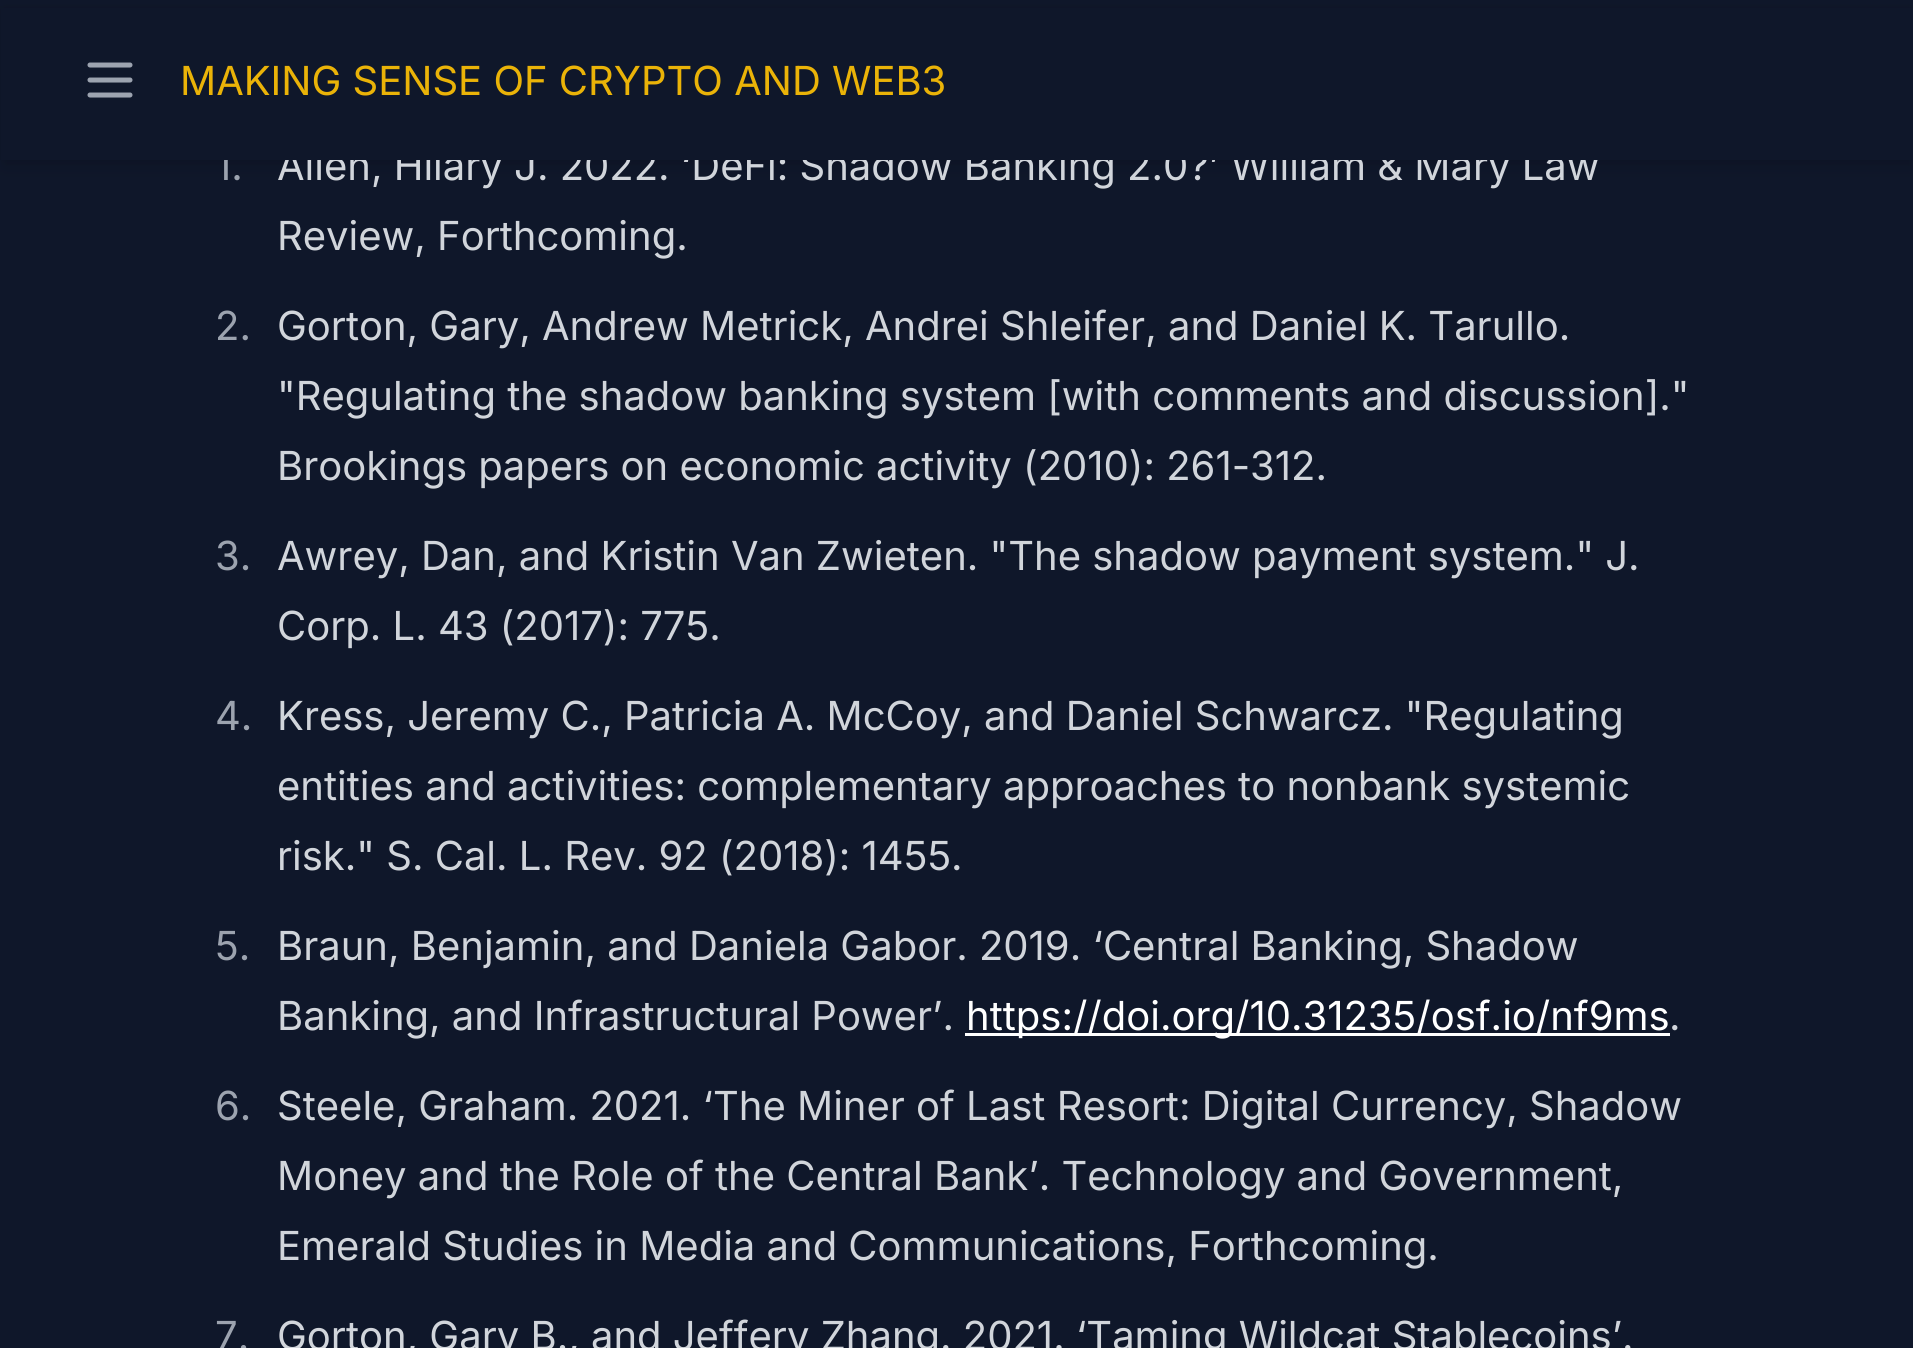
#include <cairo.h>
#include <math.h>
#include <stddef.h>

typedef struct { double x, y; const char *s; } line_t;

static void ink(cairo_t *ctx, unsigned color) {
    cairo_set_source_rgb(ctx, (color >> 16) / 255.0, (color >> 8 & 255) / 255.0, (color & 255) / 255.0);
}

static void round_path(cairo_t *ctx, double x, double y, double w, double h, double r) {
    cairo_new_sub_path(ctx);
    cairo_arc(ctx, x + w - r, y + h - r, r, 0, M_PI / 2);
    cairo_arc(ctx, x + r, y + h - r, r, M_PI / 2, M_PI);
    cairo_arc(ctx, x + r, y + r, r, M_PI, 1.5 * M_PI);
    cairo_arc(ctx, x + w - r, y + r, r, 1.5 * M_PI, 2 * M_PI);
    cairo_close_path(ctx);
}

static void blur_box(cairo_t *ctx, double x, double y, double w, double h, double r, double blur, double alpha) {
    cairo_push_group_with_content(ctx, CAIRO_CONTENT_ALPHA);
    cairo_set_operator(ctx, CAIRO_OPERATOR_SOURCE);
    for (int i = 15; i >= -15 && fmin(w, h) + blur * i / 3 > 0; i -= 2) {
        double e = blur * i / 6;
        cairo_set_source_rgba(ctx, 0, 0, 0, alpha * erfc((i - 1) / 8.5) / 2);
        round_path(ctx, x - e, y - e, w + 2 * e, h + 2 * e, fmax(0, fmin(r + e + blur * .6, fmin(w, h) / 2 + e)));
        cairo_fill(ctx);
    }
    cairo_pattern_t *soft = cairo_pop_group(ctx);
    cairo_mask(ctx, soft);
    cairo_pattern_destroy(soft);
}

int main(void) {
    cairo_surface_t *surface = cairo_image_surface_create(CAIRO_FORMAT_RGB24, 1913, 1348);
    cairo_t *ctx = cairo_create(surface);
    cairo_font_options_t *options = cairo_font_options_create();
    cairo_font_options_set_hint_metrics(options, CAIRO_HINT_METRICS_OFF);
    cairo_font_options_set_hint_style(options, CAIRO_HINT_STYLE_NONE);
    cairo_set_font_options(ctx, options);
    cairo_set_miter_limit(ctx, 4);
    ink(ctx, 0x0F172A);
    cairo_paint(ctx);
    ink(ctx, 0x000000);
    blur_box(ctx, 5, 10, 1905, 150, 0, 5, 0.1);
    blur_box(ctx, 3, 13, 1910, 155, 0, 7.5, 0.1);
    cairo_select_font_face(ctx, "Inter", CAIRO_FONT_SLANT_NORMAL, CAIRO_FONT_WEIGHT_NORMAL);
    cairo_set_font_size(ctx, 40);
    ink(ctx, 0x9CA3AF);
    cairo_move_to(ctx, 215, 180);
    cairo_show_text(ctx, "1.");
    ink(ctx, 0xD1D5DB);
    cairo_move_to(ctx, 277, 180);
    cairo_show_text(ctx, "Allen, Hilary J. 2022. ‘DeFi: Shadow Banking 2.0?’ William & Mary Law");
    ink(ctx, 0x0F172A);
    cairo_rectangle(ctx, 1, 8, 1912, 152);
    cairo_fill(ctx);
    cairo_new_path(ctx);
    cairo_move_to(ctx, 90, 65);
    cairo_line_to(ctx, 130, 65);
    cairo_move_to(ctx, 90, 80);
    cairo_line_to(ctx, 130, 80);
    cairo_move_to(ctx, 90, 95);
    cairo_line_to(ctx, 130, 95);
    ink(ctx, 0x9CA3AF);
    cairo_set_line_width(ctx, 5);
    cairo_set_line_cap(ctx, CAIRO_LINE_CAP_ROUND);
    cairo_set_line_join(ctx, CAIRO_LINE_JOIN_ROUND);
    cairo_stroke(ctx);
    ink(ctx, 0xEAB308);
    cairo_move_to(ctx, 180, 95);
    cairo_show_text(ctx, "MAKING SENSE OF CRYPTO AND WEB3");
    ink(ctx, 0xD1D5DB);
    cairo_move_to(ctx, 277, 250);
    cairo_show_text(ctx, "Review, Forthcoming.");
    ink(ctx, 0x9CA3AF);
    cairo_move_to(ctx, 215, 340);
    cairo_show_text(ctx, "2.");
    ink(ctx, 0xD1D5DB);
    {
        static const line_t items[] = {
            {277, 340, "Gorton, Gary, Andrew Metrick, Andrei Shleifer, and Daniel K. Tarullo."},
            {277, 410, "\"Regulating the shadow banking system [with comments and discussion].\""},
            {277, 480, "Brookings papers on economic activity (2010): 261-312."},
        };
        for (size_t i = 0; i < sizeof items / sizeof *items; i++) {
            cairo_move_to(ctx, items[i].x, items[i].y);
            cairo_show_text(ctx, items[i].s);
        }
    }
    ink(ctx, 0x9CA3AF);
    cairo_move_to(ctx, 215, 570);
    cairo_show_text(ctx, "3.");
    ink(ctx, 0xD1D5DB);
    cairo_move_to(ctx, 277, 570);
    cairo_show_text(ctx, "Awrey, Dan, and Kristin Van Zwieten. \"The shadow payment system.\" J.");
    cairo_move_to(ctx, 277, 640);
    cairo_show_text(ctx, "Corp. L. 43 (2017): 775.");
    ink(ctx, 0x9CA3AF);
    cairo_move_to(ctx, 215, 730);
    cairo_show_text(ctx, "4.");
    ink(ctx, 0xD1D5DB);
    {
        static const line_t items[] = {
            {277, 730, "Kress, Jeremy C., Patricia A. McCoy, and Daniel Schwarcz. \"Regulating"},
            {277, 800, "entities and activities: complementary approaches to nonbank systemic"},
            {277, 870, "risk.\" S. Cal. L. Rev. 92 (2018): 1455."},
        };
        for (size_t i = 0; i < sizeof items / sizeof *items; i++) {
            cairo_move_to(ctx, items[i].x, items[i].y);
            cairo_show_text(ctx, items[i].s);
        }
    }
    ink(ctx, 0x9CA3AF);
    cairo_move_to(ctx, 215, 960);
    cairo_show_text(ctx, "5.");
    ink(ctx, 0xD1D5DB);
    cairo_move_to(ctx, 277, 960);
    cairo_show_text(ctx, "Braun, Benjamin, and Daniela Gabor. 2019. ‘Central Banking, Shadow");
    cairo_move_to(ctx, 277, 1030);
    cairo_show_text(ctx, "Banking, and Infrastructural Power’.");
    ink(ctx, 0xFFFFFF);
    cairo_rectangle(ctx, 965, 1033, 705, 3);
    cairo_fill(ctx);
    cairo_move_to(ctx, 966, 1030);
    cairo_show_text(ctx, "https://doi.org/10.31235/osf.io/nf9ms");
    ink(ctx, 0xD1D5DB);
    cairo_move_to(ctx, 1669, 1030);
    cairo_show_text(ctx, ".");
    ink(ctx, 0x9CA3AF);
    cairo_move_to(ctx, 215, 1120);
    cairo_show_text(ctx, "6.");
    ink(ctx, 0xD1D5DB);
    {
        static const line_t items[] = {
            {277, 1120, "Steele, Graham. 2021. ‘The Miner of Last Resort: Digital Currency, Shadow"},
            {277, 1190, "Money and the Role of the Central Bank’. Technology and Government,"},
            {277, 1260, "Emerald Studies in Media and Communications, Forthcoming."},
        };
        for (size_t i = 0; i < sizeof items / sizeof *items; i++) {
            cairo_move_to(ctx, items[i].x, items[i].y);
            cairo_show_text(ctx, items[i].s);
        }
    }
    ink(ctx, 0x9CA3AF);
    cairo_move_to(ctx, 215, 1350);
    cairo_show_text(ctx, "7.");
    ink(ctx, 0xD1D5DB);
    cairo_move_to(ctx, 277, 1350);
    cairo_show_text(ctx, "Gorton, Gary B., and Jeffery Zhang. 2021. ‘Taming Wildcat Stablecoins’.");
    cairo_surface_write_to_png(surface, "image.png");
    cairo_font_options_destroy(options);
    cairo_destroy(ctx);
    cairo_surface_destroy(surface);
    return 0;
}
